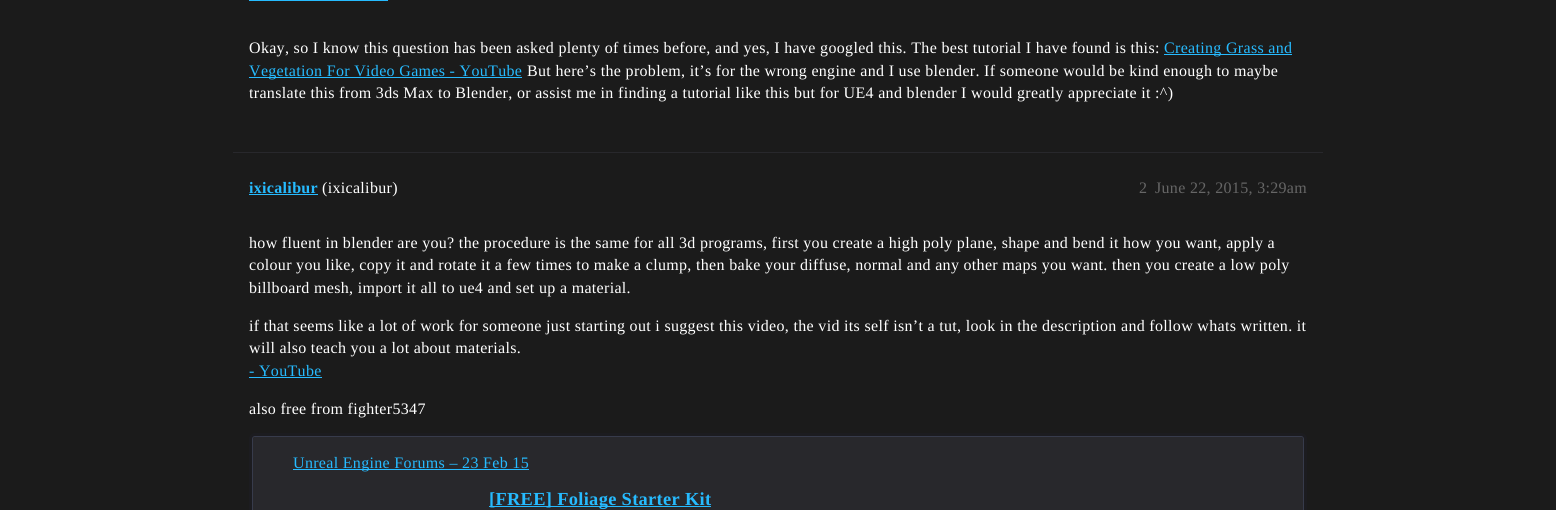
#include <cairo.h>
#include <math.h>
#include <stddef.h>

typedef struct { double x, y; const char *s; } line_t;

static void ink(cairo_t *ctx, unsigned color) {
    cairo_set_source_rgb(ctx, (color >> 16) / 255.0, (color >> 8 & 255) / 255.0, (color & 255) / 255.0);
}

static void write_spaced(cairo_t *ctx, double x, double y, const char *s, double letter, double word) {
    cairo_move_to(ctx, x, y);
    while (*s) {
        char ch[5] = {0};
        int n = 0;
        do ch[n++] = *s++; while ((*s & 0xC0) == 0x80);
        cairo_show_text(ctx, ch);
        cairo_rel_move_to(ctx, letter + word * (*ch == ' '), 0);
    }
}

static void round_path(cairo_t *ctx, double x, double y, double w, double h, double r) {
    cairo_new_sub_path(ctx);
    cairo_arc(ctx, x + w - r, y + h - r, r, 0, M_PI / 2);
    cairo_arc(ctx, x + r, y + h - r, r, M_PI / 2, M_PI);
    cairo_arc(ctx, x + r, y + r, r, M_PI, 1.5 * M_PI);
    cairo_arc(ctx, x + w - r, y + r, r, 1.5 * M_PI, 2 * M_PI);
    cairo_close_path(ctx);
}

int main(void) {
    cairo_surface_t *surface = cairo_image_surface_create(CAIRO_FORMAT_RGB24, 1556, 510);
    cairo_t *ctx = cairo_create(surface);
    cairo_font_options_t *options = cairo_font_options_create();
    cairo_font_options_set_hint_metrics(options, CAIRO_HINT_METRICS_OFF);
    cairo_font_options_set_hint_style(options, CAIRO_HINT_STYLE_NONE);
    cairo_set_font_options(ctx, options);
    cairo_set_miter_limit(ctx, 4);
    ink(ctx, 0x1B1B1B);
    cairo_paint(ctx);
    ink(ctx, 0x26BBFF);
    cairo_rectangle(ctx, 249, 0, 139, 1);
    cairo_fill(ctx);
    cairo_select_font_face(ctx, "Liberation Serif", CAIRO_FONT_SLANT_NORMAL, CAIRO_FONT_WEIGHT_NORMAL);
    cairo_set_font_size(ctx, 16);
    ink(ctx, 0xFFFFFF);
    write_spaced(ctx, 249, 53, "Okay, so I know this question has been asked plenty of times before, and yes, I have googled this. The best tutorial I have found is this:", 0.32, 0);
    ink(ctx, 0x26BBFF);
    cairo_rectangle(ctx, 1164, 54, 128, 1);
    cairo_fill(ctx);
    write_spaced(ctx, 1164, 53, "Creating Grass and", 0.32, 0);
    cairo_rectangle(ctx, 249, 77, 273, 1);
    cairo_fill(ctx);
    write_spaced(ctx, 249, 76, "Vegetation For Video Games - YouTube", 0.32, 0);
    ink(ctx, 0xFFFFFF);
    write_spaced(ctx, 527, 76, "But here’s the problem, it’s for the wrong engine and I use blender. If someone would be kind enough to maybe", 0.32, 0);
    write_spaced(ctx, 249, 98, "translate this from 3ds Max to Blender, or assist me in finding a tutorial like this but for UE4 and blender I would greatly appreciate it :^)", 0.32, 0);
    ink(ctx, 0x28282C);
    cairo_rectangle(ctx, 233, 152, 1090, 1);
    cairo_fill(ctx);
    cairo_select_font_face(ctx, "Liberation Serif", CAIRO_FONT_SLANT_NORMAL, CAIRO_FONT_WEIGHT_BOLD);
    ink(ctx, 0x26BBFF);
    write_spaced(ctx, 249, 193, "ixicalibur", 0.32, 0);
    cairo_rectangle(ctx, 249, 194, 69, 1);
    cairo_fill(ctx);
    cairo_select_font_face(ctx, "Liberation Serif", CAIRO_FONT_SLANT_NORMAL, CAIRO_FONT_WEIGHT_NORMAL);
    ink(ctx, 0xFFFFFF);
    write_spaced(ctx, 322, 193, "(ixicalibur)", 0.32, 0);
    ink(ctx, 0x666666);
    write_spaced(ctx, 1139, 193, "2", 0.32, 0);
    write_spaced(ctx, 1155, 193, "June 22, 2015, 3:29am", 0.32, 0);
    ink(ctx, 0xFFFFFF);
    {
        static const line_t items[] = {
            {249, 248, "how fluent in blender are you? the procedure is the same for all 3d programs, first you create a high poly plane, shape and bend it how you want, apply a"},
            {249, 270, "colour you like, copy it and rotate it a few times to make a clump, then bake your diffuse, normal and any other maps you want. then you create a low poly"},
            {249, 293, "billboard mesh, import it all to ue4 and set up a material."},
            {249, 331, "if that seems like a lot of work for someone just starting out i suggest this video, the vid its self isn’t a tut, look in the description and follow whats written. it"},
            {249, 353, "will also teach you a lot about materials."},
        };
        for (size_t i = 0; i < sizeof items / sizeof *items; i++) {
            write_spaced(ctx, items[i].x, items[i].y, items[i].s, 0.32, 0);
        }
    }
    ink(ctx, 0x26BBFF);
    write_spaced(ctx, 249, 376, "- YouTube", 0.32, 0);
    cairo_rectangle(ctx, 249, 377, 73, 1);
    cairo_fill(ctx);
    ink(ctx, 0xFFFFFF);
    write_spaced(ctx, 249, 414, "also free from fighter5347", 0.32, 0);
    round_path(ctx, 251, 435, 1054, 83, 4);
    ink(ctx, 0x1C1C20);
    cairo_set_line_width(ctx, 4);
    cairo_stroke(ctx);
    round_path(ctx, 252.5, 436.5, 1051, 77, 2.5);
    ink(ctx, 0x373B4B);
    cairo_set_line_width(ctx, 1);
    cairo_stroke(ctx);
    ink(ctx, 0x28282C);
    round_path(ctx, 253, 437, 1050, 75, 2);
    cairo_fill(ctx);
    ink(ctx, 0x26BBFF);
    cairo_rectangle(ctx, 293, 469, 236, 1);
    cairo_fill(ctx);
    write_spaced(ctx, 293, 468, "Unreal Engine Forums – 23 Feb 15", 0.32, 0);
    cairo_rectangle(ctx, 489, 506, 222, 1);
    cairo_fill(ctx);
    cairo_select_font_face(ctx, "Liberation Serif", CAIRO_FONT_SLANT_NORMAL, CAIRO_FONT_WEIGHT_BOLD);
    cairo_set_font_size(ctx, 18.4);
    write_spaced(ctx, 489, 505, "[FREE] Foliage Starter Kit", 0.32, 0);
    cairo_surface_write_to_png(surface, "image.png");
    cairo_font_options_destroy(options);
    cairo_destroy(ctx);
    cairo_surface_destroy(surface);
    return 0;
}
